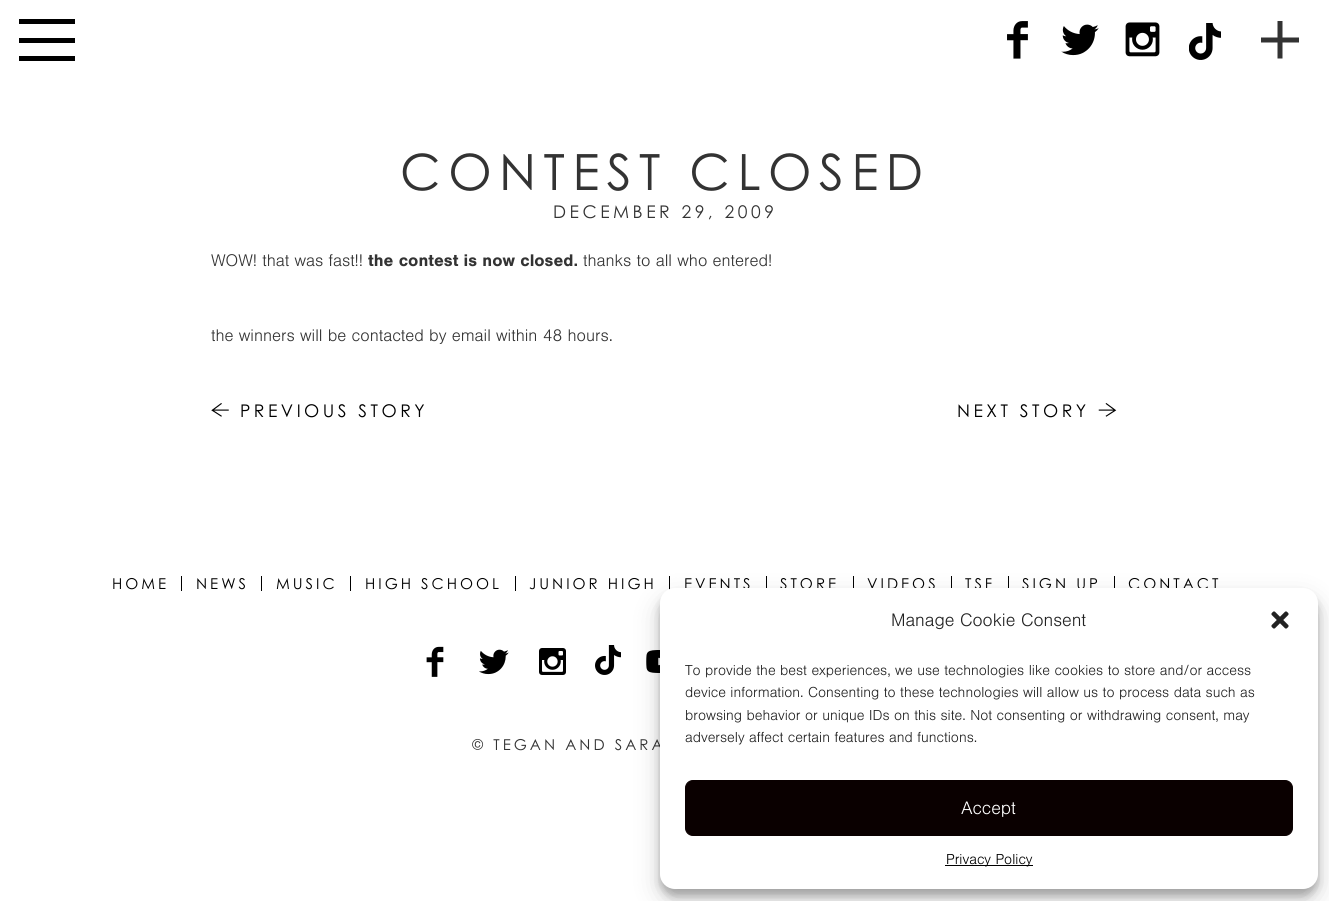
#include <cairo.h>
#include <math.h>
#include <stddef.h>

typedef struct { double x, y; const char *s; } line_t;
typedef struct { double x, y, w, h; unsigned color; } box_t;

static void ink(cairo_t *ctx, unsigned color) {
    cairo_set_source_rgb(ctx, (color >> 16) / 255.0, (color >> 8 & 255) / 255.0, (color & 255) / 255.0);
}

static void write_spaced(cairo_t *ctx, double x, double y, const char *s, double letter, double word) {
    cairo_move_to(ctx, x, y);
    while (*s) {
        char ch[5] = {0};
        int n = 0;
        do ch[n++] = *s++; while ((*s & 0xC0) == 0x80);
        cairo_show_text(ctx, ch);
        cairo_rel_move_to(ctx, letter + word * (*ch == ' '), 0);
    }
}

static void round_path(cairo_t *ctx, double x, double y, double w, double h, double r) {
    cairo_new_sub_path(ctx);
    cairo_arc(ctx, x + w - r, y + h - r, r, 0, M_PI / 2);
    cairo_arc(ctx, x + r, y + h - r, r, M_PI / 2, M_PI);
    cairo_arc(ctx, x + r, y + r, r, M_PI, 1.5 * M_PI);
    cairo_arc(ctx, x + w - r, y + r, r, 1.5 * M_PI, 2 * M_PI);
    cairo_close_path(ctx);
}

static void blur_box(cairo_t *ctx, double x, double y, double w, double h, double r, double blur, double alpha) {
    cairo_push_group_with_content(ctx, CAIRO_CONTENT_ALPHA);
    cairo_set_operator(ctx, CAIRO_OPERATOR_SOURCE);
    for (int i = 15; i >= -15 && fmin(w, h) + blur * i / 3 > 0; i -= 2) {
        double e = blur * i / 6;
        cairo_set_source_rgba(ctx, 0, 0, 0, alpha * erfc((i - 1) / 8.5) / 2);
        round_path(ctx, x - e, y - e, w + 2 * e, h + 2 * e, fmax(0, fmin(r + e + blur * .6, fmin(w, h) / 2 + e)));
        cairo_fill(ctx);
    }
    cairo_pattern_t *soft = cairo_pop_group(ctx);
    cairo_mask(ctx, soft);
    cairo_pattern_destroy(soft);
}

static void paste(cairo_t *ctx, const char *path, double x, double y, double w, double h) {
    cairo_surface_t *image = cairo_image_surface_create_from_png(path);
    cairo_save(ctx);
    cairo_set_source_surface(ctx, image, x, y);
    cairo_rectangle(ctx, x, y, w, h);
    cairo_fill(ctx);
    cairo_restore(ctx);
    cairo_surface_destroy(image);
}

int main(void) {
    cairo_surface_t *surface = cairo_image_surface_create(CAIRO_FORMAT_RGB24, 1329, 901);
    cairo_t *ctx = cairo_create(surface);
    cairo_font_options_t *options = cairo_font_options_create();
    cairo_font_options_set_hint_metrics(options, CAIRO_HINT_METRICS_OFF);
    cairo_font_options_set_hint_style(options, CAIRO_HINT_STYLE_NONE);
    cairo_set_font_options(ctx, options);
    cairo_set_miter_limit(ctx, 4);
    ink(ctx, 0xFFFFFF);
    cairo_paint(ctx);
    {
        static const box_t items[] = {
            {19, 19, 56, 5, 0x000000},
            {19, 38, 56, 5, 0x000000},
            {19, 56, 56, 5, 0x000000},
        };
        for (size_t i = 0; i < sizeof items / sizeof *items; i++) {
            ink(ctx, items[i].color);
            cairo_rectangle(ctx, items[i].x, items[i].y, items[i].w, items[i].h);
            cairo_fill(ctx);
        }
    }
    paste(ctx, "media/1.png", 1007, 21, 21, 38);
    paste(ctx, "media/2.png", 1061, 24, 38, 32);
    paste(ctx, "media/3.png", 1125, 22, 35, 35);
    paste(ctx, "media/4.png", 1189, 23, 32, 37);
    ink(ctx, 0x333333);
    cairo_new_path(ctx);
    cairo_move_to(ctx, 1277.5, 21);
    cairo_line_to(ctx, 1277.5, 37.5);
    cairo_line_to(ctx, 1261, 37.5);
    cairo_line_to(ctx, 1261, 42.5);
    cairo_line_to(ctx, 1277.5, 42.5);
    cairo_line_to(ctx, 1277.5, 58.5);
    cairo_line_to(ctx, 1282.5, 58.5);
    cairo_line_to(ctx, 1282.5, 42.5);
    cairo_line_to(ctx, 1299, 42.5);
    cairo_line_to(ctx, 1299, 37.5);
    cairo_line_to(ctx, 1282.5, 37.5);
    cairo_line_to(ctx, 1282.5, 21);
    cairo_close_path(ctx);
    cairo_fill(ctx);
    cairo_select_font_face(ctx, "Century Gothic", CAIRO_FONT_SLANT_NORMAL, CAIRO_FONT_WEIGHT_NORMAL);
    cairo_set_font_size(ctx, 50);
    write_spaced(ctx, 400, 190, "CONTEST CLOSED", 7.5, 0);
    cairo_set_font_size(ctx, 17.5);
    write_spaced(ctx, 553, 218, "DECEMBER 29, 2009", 3.5, 0);
    cairo_select_font_face(ctx, "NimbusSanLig", CAIRO_FONT_SLANT_NORMAL, CAIRO_FONT_WEIGHT_NORMAL);
    cairo_move_to(ctx, 211, 266);
    cairo_show_text(ctx, "WOW! that was fast!!");
    cairo_select_font_face(ctx, "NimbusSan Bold", CAIRO_FONT_SLANT_NORMAL, CAIRO_FONT_WEIGHT_BOLD);
    cairo_move_to(ctx, 368, 266);
    cairo_show_text(ctx, "the contest is now closed.");
    cairo_select_font_face(ctx, "NimbusSanLig", CAIRO_FONT_SLANT_NORMAL, CAIRO_FONT_WEIGHT_NORMAL);
    cairo_move_to(ctx, 583, 266);
    cairo_show_text(ctx, "thanks to all who entered!");
    cairo_move_to(ctx, 211, 341);
    cairo_show_text(ctx, "the winners will be contacted by email within 48 hours.");
    paste(ctx, "media/5.png", 211, 403, 18, 14);
    cairo_select_font_face(ctx, "Century Gothic", CAIRO_FONT_SLANT_NORMAL, CAIRO_FONT_WEIGHT_NORMAL);
    ink(ctx, 0x000000);
    write_spaced(ctx, 240, 417, "PREVIOUS STORY", 3.5, 0);
    write_spaced(ctx, 957, 417, "NEXT STORY", 3.5, 0);
    paste(ctx, "media/6.png", 1098, 403, 19, 14);
    cairo_rectangle(ctx, 181, 576, 1, 15);
    cairo_fill(ctx);
    cairo_set_font_size(ctx, 15);
    write_spaced(ctx, 112, 589, "HOME", 3, 0);
    cairo_rectangle(ctx, 261, 576, 1, 15);
    cairo_fill(ctx);
    write_spaced(ctx, 196, 589, "NEWS", 3, 0);
    cairo_rectangle(ctx, 350, 576, 1, 15);
    cairo_fill(ctx);
    write_spaced(ctx, 276, 589, "MUSIC", 3, 0);
    cairo_rectangle(ctx, 515, 576, 1, 15);
    cairo_fill(ctx);
    write_spaced(ctx, 365, 589, "HIGH SCHOOL", 3, 0);
    cairo_rectangle(ctx, 669, 576, 1, 15);
    cairo_fill(ctx);
    write_spaced(ctx, 529, 589, "JUNIOR HIGH", 3, 0);
    cairo_rectangle(ctx, 766, 576, 1, 15);
    cairo_fill(ctx);
    write_spaced(ctx, 684, 589, "EVENTS", 3, 0);
    cairo_rectangle(ctx, 853, 576, 1, 15);
    cairo_fill(ctx);
    write_spaced(ctx, 780, 589, "STORE", 3, 0);
    cairo_rectangle(ctx, 951, 576, 1, 15);
    cairo_fill(ctx);
    write_spaced(ctx, 867, 589, "VIDEOS", 3, 0);
    cairo_rectangle(ctx, 1008, 576, 1, 15);
    cairo_fill(ctx);
    write_spaced(ctx, 965, 589, "TSF", 3, 0);
    cairo_rectangle(ctx, 1114, 576, 1, 15);
    cairo_fill(ctx);
    write_spaced(ctx, 1022, 589, "SIGN UP", 3, 0);
    write_spaced(ctx, 1128, 589, "CONTACT", 3, 0);
    paste(ctx, "media/7.png", 426, 646, 18, 31);
    paste(ctx, "media/8.png", 479, 649, 30, 26);
    paste(ctx, "media/9.png", 539, 648, 27, 27);
    paste(ctx, "media/10.png", 595, 645, 26, 30);
    paste(ctx, "media/11.png", 646, 650, 14, 23);
    ink(ctx, 0x333333);
    write_spaced(ctx, 472, 750, "© TEGAN AND SARA", 3, 0);
    ink(ctx, 0x000000);
    blur_box(ctx, 660, 595, 658, 301, 15, 4, 0.23);
    blur_box(ctx, 660, 600, 658, 301, 15, 12.5, 0.19);
    ink(ctx, 0xFFFFFF);
    round_path(ctx, 660, 588, 658, 301, 15);
    cairo_fill(ctx);
    cairo_select_font_face(ctx, "NimbusSanLig", CAIRO_FONT_SLANT_NORMAL, CAIRO_FONT_WEIGHT_NORMAL);
    cairo_set_font_size(ctx, 18.75);
    ink(ctx, 0x222222);
    cairo_move_to(ctx, 891, 626);
    cairo_show_text(ctx, "Manage Cookie Consent");
    paste(ctx, "media/12.png", 1271, 611, 18, 18);
    cairo_set_font_size(ctx, 15);
    {
        static const line_t items[] = {
            {685, 675, "To provide the best experiences, we use technologies like cookies to store and/or access"},
            {685, 697, "device information. Consenting to these technologies will allow us to process data such as"},
            {685, 720, "browsing behavior or unique IDs on this site. Not consenting or withdrawing consent, may"},
            {685, 742, "adversely affect certain features and functions."},
        };
        for (size_t i = 0; i < sizeof items / sizeof *items; i++) {
            cairo_move_to(ctx, items[i].x, items[i].y);
            cairo_show_text(ctx, items[i].s);
        }
    }
    ink(ctx, 0x0A0000);
    round_path(ctx, 685.5, 780.5, 607, 55, 7.5);
    cairo_fill_preserve(ctx);
    cairo_set_line_width(ctx, 1);
    cairo_stroke(ctx);
    cairo_set_font_size(ctx, 18.75);
    ink(ctx, 0xFFFFFF);
    cairo_move_to(ctx, 961, 814);
    cairo_show_text(ctx, "Accept");
    ink(ctx, 0x000000);
    cairo_rectangle(ctx, 945, 865, 88, 1);
    cairo_fill(ctx);
    cairo_set_font_size(ctx, 15);
    cairo_move_to(ctx, 946, 864);
    cairo_show_text(ctx, "Privacy Policy");
    cairo_surface_write_to_png(surface, "image.png");
    cairo_font_options_destroy(options);
    cairo_destroy(ctx);
    cairo_surface_destroy(surface);
    return 0;
}
